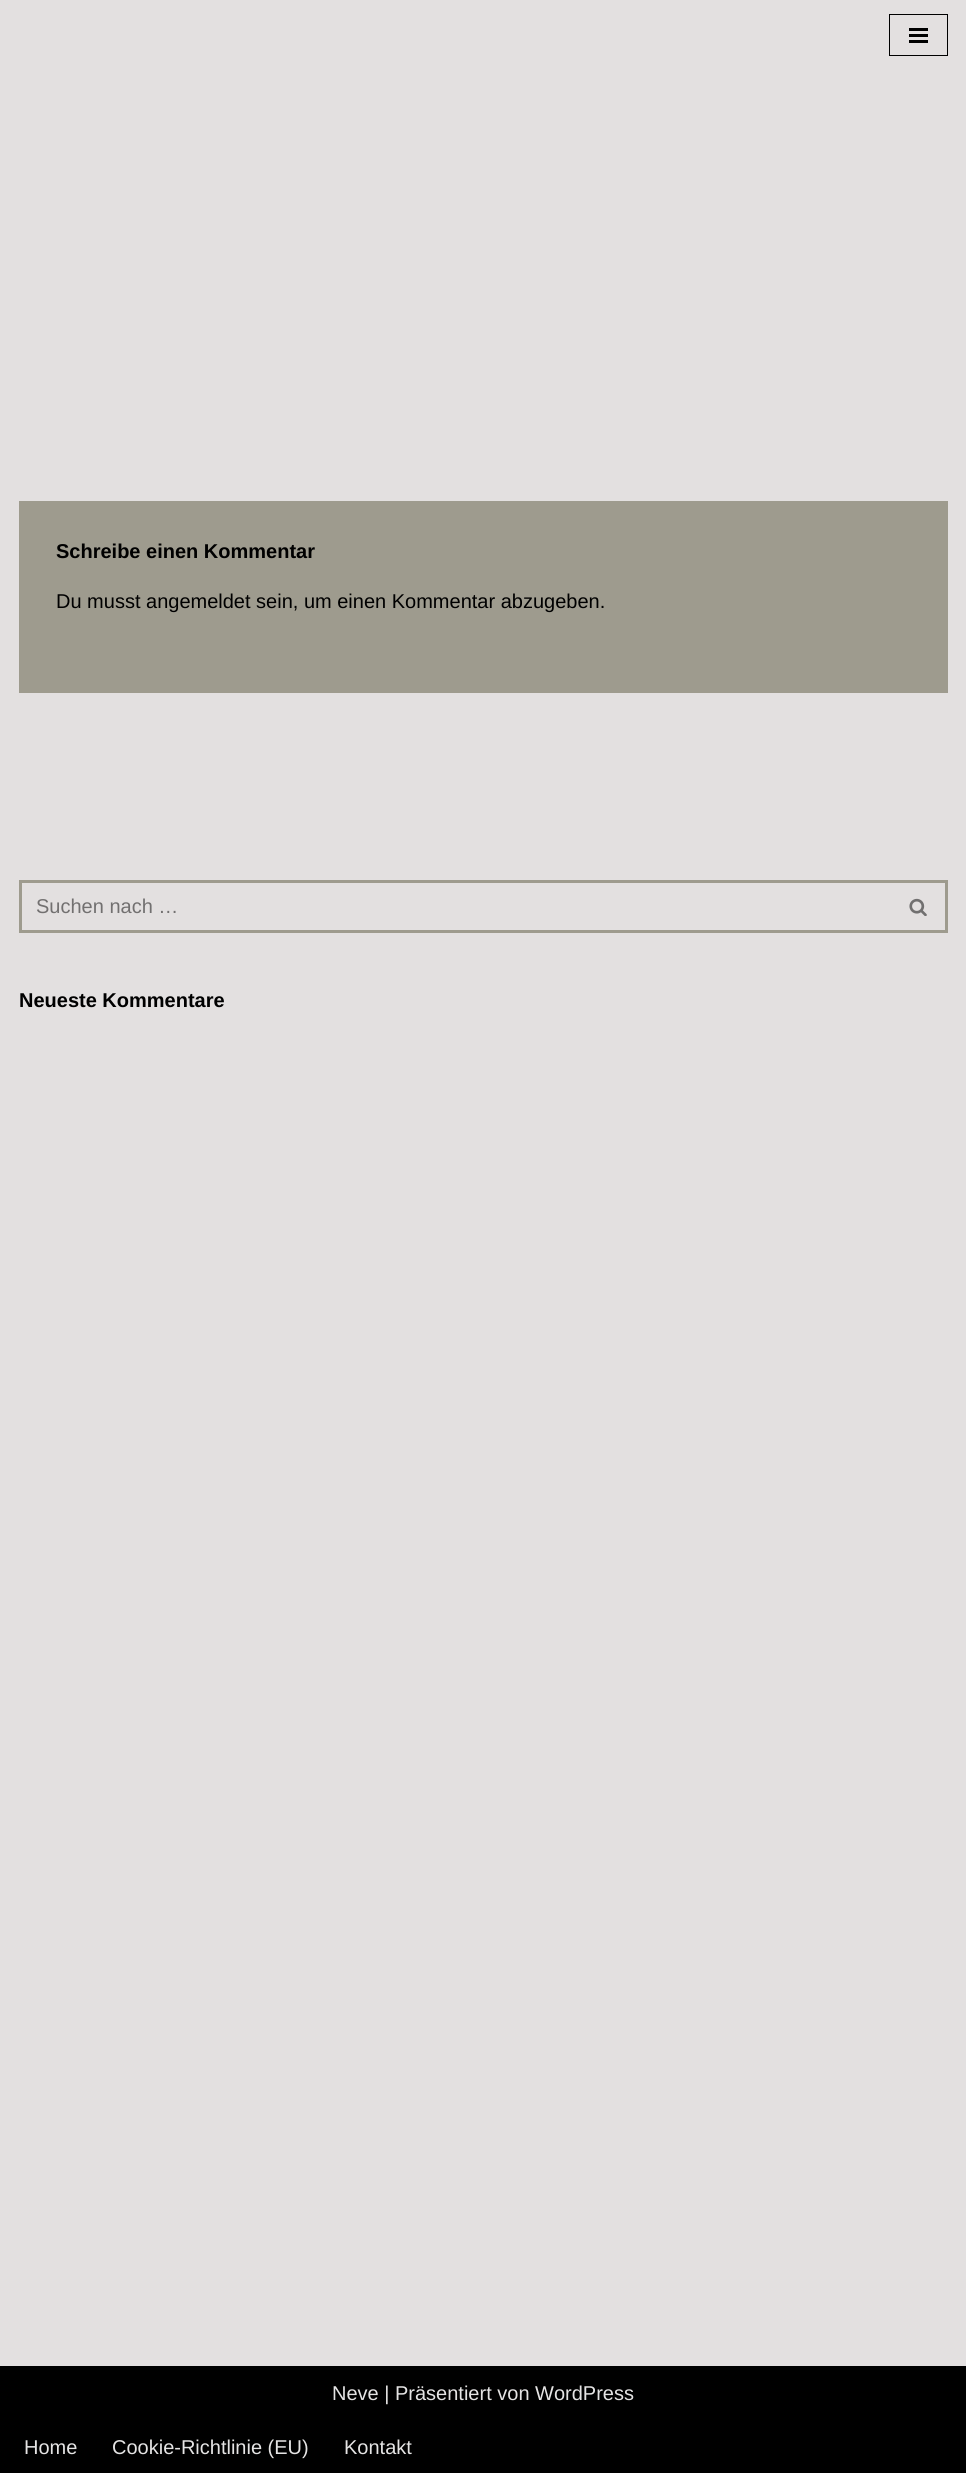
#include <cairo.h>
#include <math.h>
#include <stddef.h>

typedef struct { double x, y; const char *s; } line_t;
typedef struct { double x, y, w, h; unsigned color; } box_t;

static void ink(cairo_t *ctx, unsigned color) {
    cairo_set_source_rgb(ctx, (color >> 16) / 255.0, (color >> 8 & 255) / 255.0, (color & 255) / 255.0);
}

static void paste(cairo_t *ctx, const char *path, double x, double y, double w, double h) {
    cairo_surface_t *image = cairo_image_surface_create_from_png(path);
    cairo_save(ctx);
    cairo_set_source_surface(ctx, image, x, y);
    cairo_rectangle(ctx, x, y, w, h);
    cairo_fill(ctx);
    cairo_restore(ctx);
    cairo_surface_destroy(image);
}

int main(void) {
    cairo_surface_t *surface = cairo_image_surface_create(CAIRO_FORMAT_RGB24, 966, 2473);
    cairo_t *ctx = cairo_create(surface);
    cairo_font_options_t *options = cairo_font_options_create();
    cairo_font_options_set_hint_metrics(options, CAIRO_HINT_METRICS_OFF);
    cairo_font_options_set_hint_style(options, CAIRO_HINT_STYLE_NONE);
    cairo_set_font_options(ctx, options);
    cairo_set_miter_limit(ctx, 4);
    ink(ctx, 0xE3E0E0);
    cairo_paint(ctx);
    cairo_rectangle(ctx, 889.5, 14.5, 58, 41);
    ink(ctx, 0x000000);
    cairo_set_line_width(ctx, 1);
    cairo_stroke(ctx);
    {
        static const box_t items[] = {
            {909, 28, 19, 3, 0x000000},
            {909, 34, 19, 3, 0x000000},
            {909, 40, 19, 3, 0x000000},
            {19, 501, 929, 192, 0x9E9B8E},
        };
        for (size_t i = 0; i < sizeof items / sizeof *items; i++) {
            ink(ctx, items[i].color);
            cairo_rectangle(ctx, items[i].x, items[i].y, items[i].w, items[i].h);
            cairo_fill(ctx);
        }
    }
    cairo_select_font_face(ctx, "Liberation Sans", CAIRO_FONT_SLANT_NORMAL, CAIRO_FONT_WEIGHT_BOLD);
    cairo_set_font_size(ctx, 20);
    ink(ctx, 0x000000);
    cairo_move_to(ctx, 56, 558);
    cairo_show_text(ctx, "Schreibe einen Kommentar");
    cairo_select_font_face(ctx, "Liberation Sans", CAIRO_FONT_SLANT_NORMAL, CAIRO_FONT_WEIGHT_NORMAL);
    cairo_move_to(ctx, 56, 608);
    cairo_show_text(ctx, "Du musst angemeldet sein, um einen Kommentar abzugeben.");
    {
        static const box_t items[] = {
            {19, 880, 929, 3, 0x9E9B8E},
            {19, 930, 872, 3, 0x9E9B8E},
            {19, 880, 3, 53, 0x9E9B8E},
        };
        for (size_t i = 0; i < sizeof items / sizeof *items; i++) {
            ink(ctx, items[i].color);
            cairo_rectangle(ctx, items[i].x, items[i].y, items[i].w, items[i].h);
            cairo_fill(ctx);
        }
    }
    ink(ctx, 0x727070);
    cairo_move_to(ctx, 36, 913);
    cairo_show_text(ctx, "Suchen nach …");
    ink(ctx, 0x9E9B8E);
    cairo_rectangle(ctx, 945, 880, 3, 53);
    cairo_fill(ctx);
    cairo_rectangle(ctx, 891, 930, 57, 3);
    cairo_fill(ctx);
    paste(ctx, "media/1.png", 909, 898, 18, 18);
    cairo_select_font_face(ctx, "Liberation Sans", CAIRO_FONT_SLANT_NORMAL, CAIRO_FONT_WEIGHT_BOLD);
    ink(ctx, 0x000000);
    cairo_move_to(ctx, 19, 1007);
    cairo_show_text(ctx, "Neueste Kommentare");
    cairo_rectangle(ctx, 0, 2366, 966, 107);
    cairo_fill(ctx);
    cairo_select_font_face(ctx, "Liberation Sans", CAIRO_FONT_SLANT_NORMAL, CAIRO_FONT_WEIGHT_NORMAL);
    ink(ctx, 0xE5E4E4);
    {
        static const line_t items[] = {
            {332, 2400, "Neve | Präsentiert von WordPress"},
            {24, 2454, "Home"},
            {112, 2454, "Cookie-Richtlinie (EU)"},
            {344, 2454, "Kontakt"},
        };
        for (size_t i = 0; i < sizeof items / sizeof *items; i++) {
            cairo_move_to(ctx, items[i].x, items[i].y);
            cairo_show_text(ctx, items[i].s);
        }
    }
    cairo_surface_write_to_png(surface, "image.png");
    cairo_font_options_destroy(options);
    cairo_destroy(ctx);
    cairo_surface_destroy(surface);
    return 0;
}
